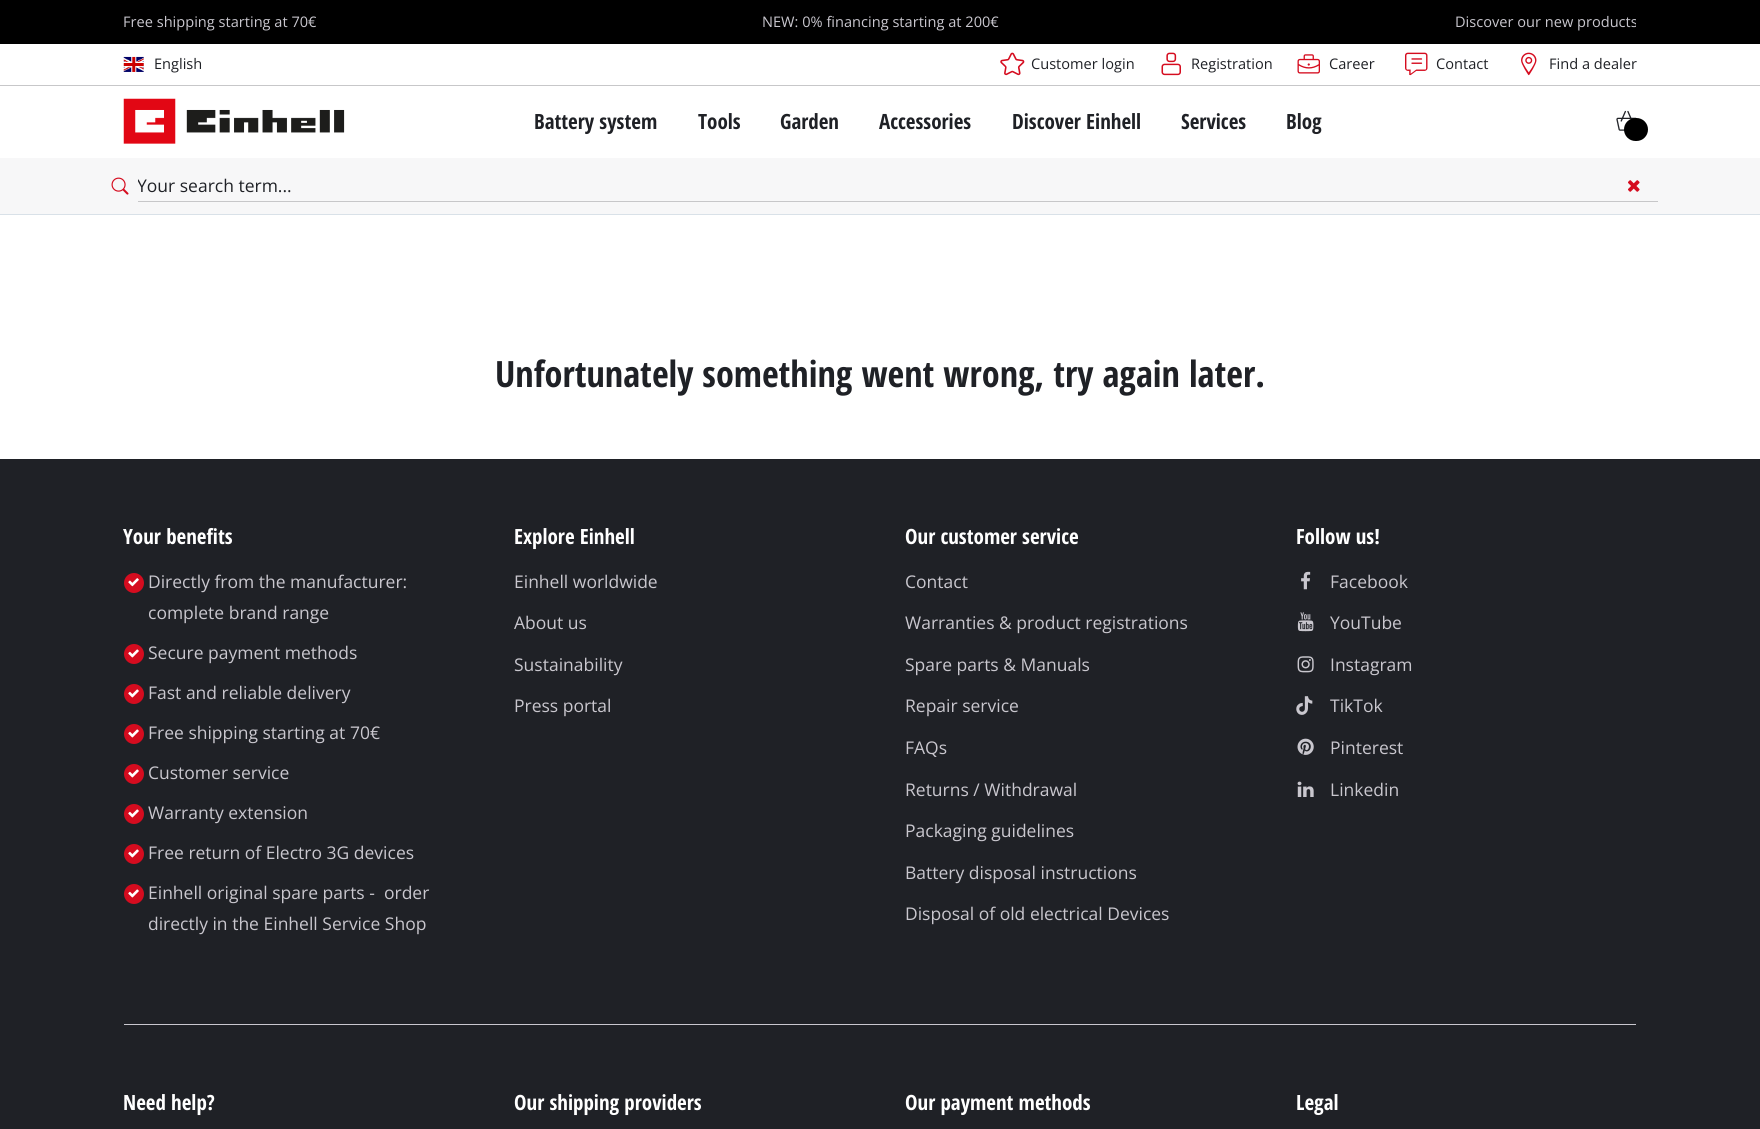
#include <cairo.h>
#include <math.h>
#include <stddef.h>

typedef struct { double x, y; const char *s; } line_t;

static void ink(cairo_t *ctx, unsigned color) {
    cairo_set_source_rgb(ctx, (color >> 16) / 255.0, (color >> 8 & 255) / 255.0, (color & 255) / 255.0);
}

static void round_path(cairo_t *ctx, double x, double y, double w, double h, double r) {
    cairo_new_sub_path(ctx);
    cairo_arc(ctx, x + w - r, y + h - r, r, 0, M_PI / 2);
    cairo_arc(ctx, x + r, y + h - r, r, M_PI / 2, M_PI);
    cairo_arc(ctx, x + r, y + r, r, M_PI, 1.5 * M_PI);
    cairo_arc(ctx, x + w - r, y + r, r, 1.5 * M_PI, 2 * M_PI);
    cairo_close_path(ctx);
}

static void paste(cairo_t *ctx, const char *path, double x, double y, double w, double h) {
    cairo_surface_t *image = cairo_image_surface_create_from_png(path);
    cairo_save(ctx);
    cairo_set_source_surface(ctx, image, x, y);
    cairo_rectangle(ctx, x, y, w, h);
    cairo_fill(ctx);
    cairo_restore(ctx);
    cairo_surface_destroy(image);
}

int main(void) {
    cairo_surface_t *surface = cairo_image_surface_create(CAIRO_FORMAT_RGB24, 1760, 1129);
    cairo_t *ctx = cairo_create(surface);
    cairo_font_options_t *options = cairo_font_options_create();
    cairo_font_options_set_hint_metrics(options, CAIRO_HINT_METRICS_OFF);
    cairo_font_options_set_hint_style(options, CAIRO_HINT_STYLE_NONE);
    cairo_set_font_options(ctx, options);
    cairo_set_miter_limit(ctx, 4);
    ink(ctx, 0xFFFFFF);
    cairo_paint(ctx);
    ink(ctx, 0x000000);
    cairo_rectangle(ctx, 0, 0, 1760, 44);
    cairo_fill(ctx);
    cairo_select_font_face(ctx, "Open Sans", CAIRO_FONT_SLANT_NORMAL, CAIRO_FONT_WEIGHT_NORMAL);
    cairo_set_font_size(ctx, 14.6);
    ink(ctx, 0xC9C7CE);
    cairo_move_to(ctx, 123, 27);
    cairo_show_text(ctx, "Free shipping starting at 70€");
    cairo_move_to(ctx, 762, 27);
    cairo_show_text(ctx, "NEW: 0% financing starting at 200€");
    cairo_save(ctx);
    cairo_rectangle(ctx, 124, 9, 1512, 26);
    cairo_clip(ctx);
    cairo_move_to(ctx, 1455, 27);
    cairo_show_text(ctx, "Discover our new products");
    cairo_restore(ctx);
    ink(ctx, 0xC7C7C9);
    cairo_rectangle(ctx, 0, 85, 1760, 1);
    cairo_fill(ctx);
    paste(ctx, "media/1.png", 123, 56, 21, 16);
    ink(ctx, 0x1F2126);
    cairo_move_to(ctx, 154, 69);
    cairo_show_text(ctx, "English");
    paste(ctx, "media/2.png", 1000, 52, 25, 24);
    cairo_move_to(ctx, 1031, 69);
    cairo_show_text(ctx, "Customer login");
    paste(ctx, "media/3.png", 1161, 52, 20, 24);
    cairo_move_to(ctx, 1191, 69);
    cairo_show_text(ctx, "Registration");
    paste(ctx, "media/4.png", 1297, 54, 23, 20);
    cairo_move_to(ctx, 1329, 69);
    cairo_show_text(ctx, "Career");
    paste(ctx, "media/5.png", 1405, 52, 23, 24);
    cairo_move_to(ctx, 1436, 69);
    cairo_show_text(ctx, "Contact");
    paste(ctx, "media/6.png", 1521, 52, 16, 24);
    cairo_move_to(ctx, 1549, 69);
    cairo_show_text(ctx, "Find a dealer");
    ink(ctx, 0xD9E1E8);
    cairo_rectangle(ctx, 0, 214, 1760, 1);
    cairo_fill(ctx);
    paste(ctx, "media/7.png", 123, 98, 222, 46);
    cairo_select_font_face(ctx, "Open Sans Condensed", CAIRO_FONT_SLANT_NORMAL, CAIRO_FONT_WEIGHT_BOLD);
    cairo_set_font_size(ctx, 21);
    ink(ctx, 0x1F2126);
    {
        static const line_t items[] = {
            {534, 129, "Battery system"},
            {698, 129, "Tools"},
            {780, 129, "Garden"},
            {879, 129, "Accessories"},
            {1012, 129, "Discover Einhell"},
            {1181, 129, "Services"},
            {1286, 129, "Blog"},
        };
        for (size_t i = 0; i < sizeof items / sizeof *items; i++) {
            cairo_move_to(ctx, items[i].x, items[i].y);
            cairo_show_text(ctx, items[i].s);
        }
    }
    paste(ctx, "media/8.png", 1616, 110, 21, 21);
    ink(ctx, 0x000000);
    round_path(ctx, 1624, 118, 24, 23, 11.5);
    cairo_fill(ctx);
    ink(ctx, 0xF7F7F8);
    cairo_rectangle(ctx, 0, 158, 1760, 56);
    cairo_fill(ctx);
    paste(ctx, "media/9.png", 111, 177, 18, 18);
    ink(ctx, 0xC7C7C9);
    cairo_rectangle(ctx, 138, 201, 1520, 1);
    cairo_fill(ctx);
    cairo_save(ctx);
    cairo_rectangle(ctx, 138, 174, 1520, 24);
    cairo_clip(ctx);
    cairo_select_font_face(ctx, "Open Sans", CAIRO_FONT_SLANT_NORMAL, CAIRO_FONT_WEIGHT_NORMAL);
    cairo_set_font_size(ctx, 17.5);
    ink(ctx, 0x1F2126);
    cairo_move_to(ctx, 137, 192);
    cairo_show_text(ctx, "Your search term...");
    cairo_restore(ctx);
    paste(ctx, "media/10.png", 1628, 180, 12, 12);
    cairo_set_font_size(ctx, 36.25);
    ink(ctx, 0x1F2126);
    cairo_move_to(ctx, 495, 387);
    cairo_show_text(ctx, "Unfortunately something went wrong, try again later.");
    cairo_rectangle(ctx, 0, 459, 1760, 670);
    cairo_fill(ctx);
    cairo_set_font_size(ctx, 21);
    ink(ctx, 0xFFFFFF);
    cairo_move_to(ctx, 123, 544);
    cairo_show_text(ctx, "Your benefits");
    ink(ctx, 0xD50C1F);
    cairo_new_path(ctx);
    cairo_arc(ctx, 134, 583, 10, 0, 2 * M_PI);
    cairo_fill(ctx);
    paste(ctx, "media/11.png", 128, 578, 11, 9);
    cairo_select_font_face(ctx, "Open Sans", CAIRO_FONT_SLANT_NORMAL, CAIRO_FONT_WEIGHT_NORMAL);
    cairo_set_font_size(ctx, 17.5);
    ink(ctx, 0xC9C7CE);
    cairo_move_to(ctx, 148, 588);
    cairo_show_text(ctx, "Directly from the manufacturer:");
    cairo_move_to(ctx, 148, 619);
    cairo_show_text(ctx, "complete brand range");
    ink(ctx, 0xD50C1F);
    cairo_new_path(ctx);
    cairo_arc(ctx, 134, 654, 10, 0, 2 * M_PI);
    cairo_fill(ctx);
    paste(ctx, "media/12.png", 128, 649, 11, 9);
    ink(ctx, 0xC9C7CE);
    cairo_move_to(ctx, 148, 659);
    cairo_show_text(ctx, "Secure payment methods");
    ink(ctx, 0xD50C1F);
    cairo_new_path(ctx);
    cairo_arc(ctx, 134, 694, 10, 0, 2 * M_PI);
    cairo_fill(ctx);
    paste(ctx, "media/12.png", 128, 689, 11, 9);
    ink(ctx, 0xC9C7CE);
    cairo_move_to(ctx, 148, 699);
    cairo_show_text(ctx, "Fast and reliable delivery");
    ink(ctx, 0xD50C1F);
    cairo_new_path(ctx);
    cairo_arc(ctx, 134, 734, 10, 0, 2 * M_PI);
    cairo_fill(ctx);
    paste(ctx, "media/12.png", 128, 729, 11, 9);
    ink(ctx, 0xC9C7CE);
    cairo_move_to(ctx, 148, 739);
    cairo_show_text(ctx, "Free shipping starting at 70€");
    ink(ctx, 0xD50C1F);
    cairo_new_path(ctx);
    cairo_arc(ctx, 134, 774, 10, 0, 2 * M_PI);
    cairo_fill(ctx);
    paste(ctx, "media/12.png", 128, 769, 11, 9);
    ink(ctx, 0xC9C7CE);
    cairo_move_to(ctx, 148, 779);
    cairo_show_text(ctx, "Customer service");
    ink(ctx, 0xD50C1F);
    cairo_new_path(ctx);
    cairo_arc(ctx, 134, 814, 10, 0, 2 * M_PI);
    cairo_fill(ctx);
    paste(ctx, "media/12.png", 128, 809, 11, 9);
    ink(ctx, 0xC9C7CE);
    cairo_move_to(ctx, 148, 819);
    cairo_show_text(ctx, "Warranty extension");
    ink(ctx, 0xD50C1F);
    cairo_new_path(ctx);
    cairo_arc(ctx, 134, 854, 10, 0, 2 * M_PI);
    cairo_fill(ctx);
    paste(ctx, "media/12.png", 128, 849, 11, 9);
    ink(ctx, 0xC9C7CE);
    cairo_move_to(ctx, 148, 859);
    cairo_show_text(ctx, "Free return of Electro 3G devices");
    ink(ctx, 0xD50C1F);
    cairo_new_path(ctx);
    cairo_arc(ctx, 134, 894, 10, 0, 2 * M_PI);
    cairo_fill(ctx);
    paste(ctx, "media/12.png", 128, 889, 11, 9);
    ink(ctx, 0xC9C7CE);
    cairo_move_to(ctx, 148, 899);
    cairo_show_text(ctx, "Einhell original spare parts -  order");
    cairo_move_to(ctx, 148, 930);
    cairo_show_text(ctx, "directly in the Einhell Service Shop");
    cairo_select_font_face(ctx, "Open Sans Condensed", CAIRO_FONT_SLANT_NORMAL, CAIRO_FONT_WEIGHT_BOLD);
    cairo_set_font_size(ctx, 21);
    ink(ctx, 0xFFFFFF);
    cairo_move_to(ctx, 514, 544);
    cairo_show_text(ctx, "Explore Einhell");
    cairo_select_font_face(ctx, "Open Sans", CAIRO_FONT_SLANT_NORMAL, CAIRO_FONT_WEIGHT_NORMAL);
    cairo_set_font_size(ctx, 17.5);
    ink(ctx, 0xC9C7CE);
    {
        static const line_t items[] = {
            {514, 588, "Einhell worldwide"},
            {514, 629, "About us"},
            {514, 671, "Sustainability"},
            {514, 712, "Press portal"},
        };
        for (size_t i = 0; i < sizeof items / sizeof *items; i++) {
            cairo_move_to(ctx, items[i].x, items[i].y);
            cairo_show_text(ctx, items[i].s);
        }
    }
    cairo_select_font_face(ctx, "Open Sans Condensed", CAIRO_FONT_SLANT_NORMAL, CAIRO_FONT_WEIGHT_BOLD);
    cairo_set_font_size(ctx, 21);
    ink(ctx, 0xFFFFFF);
    cairo_move_to(ctx, 905, 544);
    cairo_show_text(ctx, "Our customer service");
    cairo_select_font_face(ctx, "Open Sans", CAIRO_FONT_SLANT_NORMAL, CAIRO_FONT_WEIGHT_NORMAL);
    cairo_set_font_size(ctx, 17.5);
    ink(ctx, 0xC9C7CE);
    {
        static const line_t items[] = {
            {905, 588, "Contact"},
            {905, 629, "Warranties & product registrations"},
            {905, 671, "Spare parts & Manuals"},
            {905, 712, "Repair service"},
            {905, 754, "FAQs"},
            {905, 796, "Returns / Withdrawal"},
            {905, 837, "Packaging guidelines"},
            {905, 879, "Battery disposal instructions"},
            {905, 920, "Disposal of old electrical Devices"},
        };
        for (size_t i = 0; i < sizeof items / sizeof *items; i++) {
            cairo_move_to(ctx, items[i].x, items[i].y);
            cairo_show_text(ctx, items[i].s);
        }
    }
    cairo_select_font_face(ctx, "Open Sans Condensed", CAIRO_FONT_SLANT_NORMAL, CAIRO_FONT_WEIGHT_BOLD);
    cairo_set_font_size(ctx, 21);
    ink(ctx, 0xFFFFFF);
    cairo_move_to(ctx, 1296, 544);
    cairo_show_text(ctx, "Follow us!");
    paste(ctx, "media/13.png", 1301, 571, 10, 19);
    cairo_select_font_face(ctx, "Open Sans", CAIRO_FONT_SLANT_NORMAL, CAIRO_FONT_WEIGHT_NORMAL);
    cairo_set_font_size(ctx, 17.5);
    ink(ctx, 0xC9C7CE);
    cairo_move_to(ctx, 1330, 588);
    cairo_show_text(ctx, "Facebook");
    paste(ctx, "media/14.png", 1297, 612, 17, 20);
    cairo_move_to(ctx, 1330, 629);
    cairo_show_text(ctx, "YouTube");
    paste(ctx, "media/15.png", 1297, 656, 17, 17);
    cairo_move_to(ctx, 1330, 671);
    cairo_show_text(ctx, "Instagram");
    paste(ctx, "media/16.png", 1296, 696, 17, 19);
    cairo_move_to(ctx, 1330, 712);
    cairo_show_text(ctx, "TikTok");
    paste(ctx, "media/17.png", 1297, 738, 17, 17);
    cairo_move_to(ctx, 1330, 754);
    cairo_show_text(ctx, "Pinterest");
    paste(ctx, "media/18.png", 1297, 781, 17, 16);
    cairo_move_to(ctx, 1330, 796);
    cairo_show_text(ctx, "Linkedin");
    cairo_rectangle(ctx, 124, 1024, 1512, 1);
    cairo_fill(ctx);
    cairo_select_font_face(ctx, "Open Sans Condensed", CAIRO_FONT_SLANT_NORMAL, CAIRO_FONT_WEIGHT_BOLD);
    cairo_set_font_size(ctx, 21);
    ink(ctx, 0xFFFFFF);
    {
        static const line_t items[] = {
            {123, 1110, "Need help?"},
            {514, 1110, "Our shipping providers"},
            {905, 1110, "Our payment methods"},
            {1296, 1110, "Legal"},
        };
        for (size_t i = 0; i < sizeof items / sizeof *items; i++) {
            cairo_move_to(ctx, items[i].x, items[i].y);
            cairo_show_text(ctx, items[i].s);
        }
    }
    cairo_surface_write_to_png(surface, "image.png");
    cairo_font_options_destroy(options);
    cairo_destroy(ctx);
    cairo_surface_destroy(surface);
    return 0;
}
